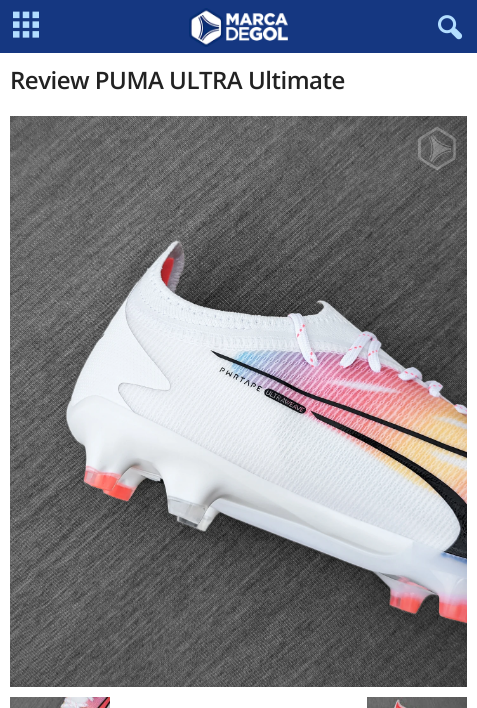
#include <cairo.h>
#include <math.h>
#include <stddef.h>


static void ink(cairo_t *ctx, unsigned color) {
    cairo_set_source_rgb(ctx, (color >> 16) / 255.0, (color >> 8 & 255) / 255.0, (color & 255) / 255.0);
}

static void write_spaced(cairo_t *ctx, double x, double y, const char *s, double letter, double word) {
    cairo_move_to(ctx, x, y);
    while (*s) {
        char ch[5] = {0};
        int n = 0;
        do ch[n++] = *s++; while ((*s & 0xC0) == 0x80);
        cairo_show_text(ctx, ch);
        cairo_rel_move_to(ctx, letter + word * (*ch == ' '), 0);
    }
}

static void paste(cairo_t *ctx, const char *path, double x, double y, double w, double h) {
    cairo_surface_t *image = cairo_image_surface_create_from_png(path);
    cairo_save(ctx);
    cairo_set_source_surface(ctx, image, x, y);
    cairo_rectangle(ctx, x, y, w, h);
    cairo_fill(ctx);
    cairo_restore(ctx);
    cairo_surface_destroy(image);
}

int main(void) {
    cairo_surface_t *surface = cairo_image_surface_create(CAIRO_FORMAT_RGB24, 477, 708);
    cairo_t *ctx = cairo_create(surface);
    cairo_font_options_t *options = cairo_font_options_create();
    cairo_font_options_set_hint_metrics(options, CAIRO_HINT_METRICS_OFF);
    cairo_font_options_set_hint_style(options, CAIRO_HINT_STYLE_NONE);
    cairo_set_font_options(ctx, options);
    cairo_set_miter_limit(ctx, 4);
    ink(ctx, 0xFFFFFF);
    cairo_paint(ctx);
    ink(ctx, 0x153781);
    cairo_rectangle(ctx, 0, 0, 477, 53);
    cairo_fill(ctx);
    paste(ctx, "media/1.png", 13, 11, 26, 27);
    paste(ctx, "media/2.png", 189, 8, 99, 39);
    paste(ctx, "media/3.png", 438, 15, 25, 25);
    cairo_select_font_face(ctx, "Open Sans SemiBold", CAIRO_FONT_SLANT_NORMAL, CAIRO_FONT_WEIGHT_NORMAL);
    cairo_set_font_size(ctx, 24);
    ink(ctx, 0x222222);
    write_spaced(ctx, 10, 89, "Review PUMA ULTRA Ultimate", -0.5, 0);
    paste(ctx, "media/4.png", 10, 116, 457, 571);
    paste(ctx, "media/5.png", 10, 697, 100, 11);
    paste(ctx, "media/6.png", 367, 697, 100, 11);
    cairo_surface_write_to_png(surface, "image.png");
    cairo_font_options_destroy(options);
    cairo_destroy(ctx);
    cairo_surface_destroy(surface);
    return 0;
}
